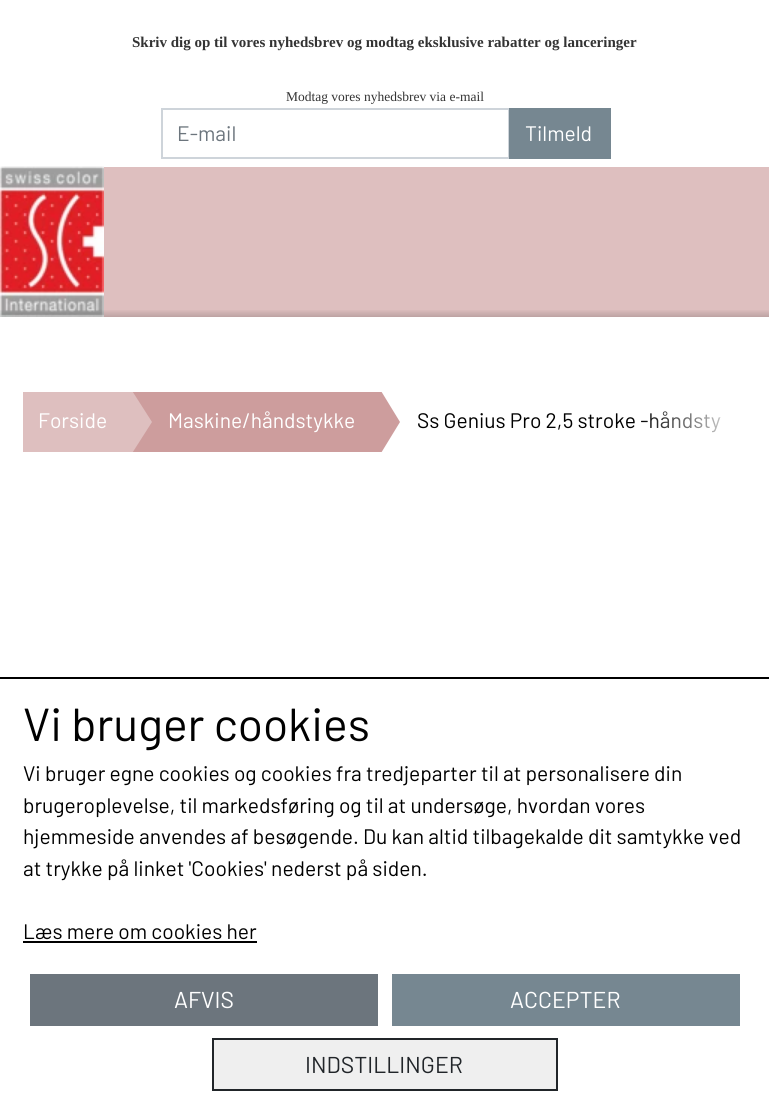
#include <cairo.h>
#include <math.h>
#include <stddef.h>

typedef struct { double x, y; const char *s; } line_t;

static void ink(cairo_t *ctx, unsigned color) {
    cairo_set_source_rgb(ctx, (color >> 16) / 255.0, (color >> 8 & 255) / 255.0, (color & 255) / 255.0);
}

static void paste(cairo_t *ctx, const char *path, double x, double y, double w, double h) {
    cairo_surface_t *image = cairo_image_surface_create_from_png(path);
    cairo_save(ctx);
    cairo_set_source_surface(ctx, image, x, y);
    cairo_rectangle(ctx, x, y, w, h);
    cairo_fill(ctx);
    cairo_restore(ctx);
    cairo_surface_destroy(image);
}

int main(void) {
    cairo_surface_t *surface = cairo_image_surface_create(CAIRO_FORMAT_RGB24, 769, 1101);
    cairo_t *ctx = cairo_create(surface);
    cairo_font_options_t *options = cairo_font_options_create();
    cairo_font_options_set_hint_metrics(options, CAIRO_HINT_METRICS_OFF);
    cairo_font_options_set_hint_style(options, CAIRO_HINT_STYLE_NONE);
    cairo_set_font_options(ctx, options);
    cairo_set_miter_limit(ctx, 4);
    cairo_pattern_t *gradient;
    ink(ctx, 0xFFFFFF);
    cairo_paint(ctx);
    cairo_select_font_face(ctx, "Liberation Serif", CAIRO_FONT_SLANT_NORMAL, CAIRO_FONT_WEIGHT_BOLD);
    cairo_set_font_size(ctx, 15);
    ink(ctx, 0x333333);
    cairo_move_to(ctx, 132, 47);
    cairo_show_text(ctx, "Skriv dig op til vores nyhedsbrev og modtag eksklusive rabatter og lanceringer");
    cairo_select_font_face(ctx, "Liberation Serif", CAIRO_FONT_SLANT_NORMAL, CAIRO_FONT_WEIGHT_NORMAL);
    cairo_set_font_size(ctx, 13.5);
    cairo_move_to(ctx, 286, 101);
    cairo_show_text(ctx, "Modtag vores nyhedsbrev via e-mail");
    cairo_rectangle(ctx, 162, 109, 347, 49);
    ink(ctx, 0xCED4DA);
    cairo_stroke(ctx);
    cairo_select_font_face(ctx, "Barlow", CAIRO_FONT_SLANT_NORMAL, CAIRO_FONT_WEIGHT_NORMAL);
    cairo_set_font_size(ctx, 21);
    ink(ctx, 0x6C757D);
    cairo_move_to(ctx, 177, 141);
    cairo_show_text(ctx, "E-mail");
    ink(ctx, 0x768791);
    cairo_rectangle(ctx, 509, 108, 102, 51);
    cairo_fill(ctx);
    ink(ctx, 0xFFFFFF);
    cairo_move_to(ctx, 525, 141);
    cairo_show_text(ctx, "Tilmeld");
    ink(ctx, 0xDEBFBF);
    cairo_rectangle(ctx, 104, 167, 665, 150);
    cairo_fill(ctx);
    paste(ctx, "media/1.png", 0, 166, 104, 151);
    gradient = cairo_pattern_create_linear(385, 317, 385, 309);
    cairo_pattern_add_color_stop_rgba(gradient, 0, 0, 0, 0, 0.15);
    cairo_pattern_add_color_stop_rgba(gradient, 1, 0, 0, 0, 0);
    cairo_set_source(ctx, gradient);
    cairo_pattern_destroy(gradient);
    cairo_rectangle(ctx, 0, 310, 769, 7);
    cairo_fill(ctx);
    ink(ctx, 0xDEBFBF);
    cairo_rectangle(ctx, 23, 392, 84, 60);
    cairo_fill(ctx);
    ink(ctx, 0xFFFFFF);
    cairo_move_to(ctx, 38, 428);
    cairo_show_text(ctx, "Forside");
    ink(ctx, 0xCD9D9D);
    cairo_rectangle(ctx, 132, 392, 224, 60);
    cairo_fill(ctx);
    cairo_save(ctx);
    cairo_rectangle(ctx, 107, 392, 45, 60);
    cairo_clip(ctx);
    ink(ctx, 0xDEBFBF);
    cairo_new_path(ctx);
    cairo_move_to(ctx, 106, 494);
    cairo_line_to(ctx, 106, 350);
    cairo_line_to(ctx, 152, 422);
    cairo_close_path(ctx);
    cairo_fill(ctx);
    cairo_restore(ctx);
    ink(ctx, 0xFFFFFF);
    cairo_move_to(ctx, 168, 428);
    cairo_show_text(ctx, "Maskine/håndstykke");
    cairo_save(ctx);
    cairo_rectangle(ctx, 356, 392, 45, 60);
    cairo_clip(ctx);
    ink(ctx, 0xCD9D9D);
    cairo_new_path(ctx);
    cairo_move_to(ctx, 356, 494);
    cairo_line_to(ctx, 356, 350);
    cairo_line_to(ctx, 400, 422);
    cairo_close_path(ctx);
    cairo_fill(ctx);
    cairo_restore(ctx);
    ink(ctx, 0x000000);
    cairo_move_to(ctx, 417, 428);
    cairo_show_text(ctx, "Ss Genius Pro 2,5 stroke -håndsty");
    gradient = cairo_pattern_create_linear(639, 422, 747, 422);
    cairo_pattern_add_color_stop_rgba(gradient, 0, 1, 1, 1, 0);
    cairo_pattern_add_color_stop_rgba(gradient, 1, 1, 1, 1, 1);
    cairo_set_source(ctx, gradient);
    cairo_pattern_destroy(gradient);
    cairo_rectangle(ctx, 641, 411, 79, 22);
    cairo_fill(ctx);
    ink(ctx, 0x000000);
    cairo_rectangle(ctx, 0, 677, 769, 2);
    cairo_fill(ctx);
    cairo_set_font_size(ctx, 46.25);
    cairo_move_to(ctx, 23, 741);
    cairo_show_text(ctx, "Vi bruger cookies");
    cairo_set_font_size(ctx, 21);
    {
        static const line_t items[] = {
            {23, 781, "Vi bruger egne cookies og cookies fra tredjeparter til at personalisere din"},
            {23, 813, "brugeroplevelse, til markedsføring og til at undersøge, hvordan vores"},
            {23, 844, "hjemmeside anvendes af besøgende. Du kan altid tilbagekalde dit samtykke ved"},
            {23, 876, "at trykke på linket 'Cookies' nederst på siden."},
            {23, 939, "Læs mere om cookies her"},
        };
        for (size_t i = 0; i < sizeof items / sizeof *items; i++) {
            cairo_move_to(ctx, items[i].x, items[i].y);
            cairo_show_text(ctx, items[i].s);
        }
    }
    cairo_rectangle(ctx, 23, 941, 234, 2);
    cairo_fill(ctx);
    ink(ctx, 0x6C757D);
    cairo_rectangle(ctx, 30, 974, 348, 52);
    cairo_fill(ctx);
    cairo_set_font_size(ctx, 23);
    ink(ctx, 0xFFFFFF);
    cairo_move_to(ctx, 174, 1008);
    cairo_show_text(ctx, "AFVIS");
    ink(ctx, 0x768791);
    cairo_rectangle(ctx, 392, 974, 348, 52);
    cairo_fill(ctx);
    ink(ctx, 0xFFFFFF);
    cairo_move_to(ctx, 510, 1008);
    cairo_show_text(ctx, "ACCEPTER");
    ink(ctx, 0xEFEFEF);
    cairo_rectangle(ctx, 213, 1039, 344, 51);
    cairo_fill_preserve(ctx);
    ink(ctx, 0x212529);
    cairo_stroke(ctx);
    cairo_move_to(ctx, 305, 1073);
    cairo_show_text(ctx, "INDSTILLINGER");
    cairo_surface_write_to_png(surface, "image.png");
    cairo_font_options_destroy(options);
    cairo_destroy(ctx);
    cairo_surface_destroy(surface);
    return 0;
}
